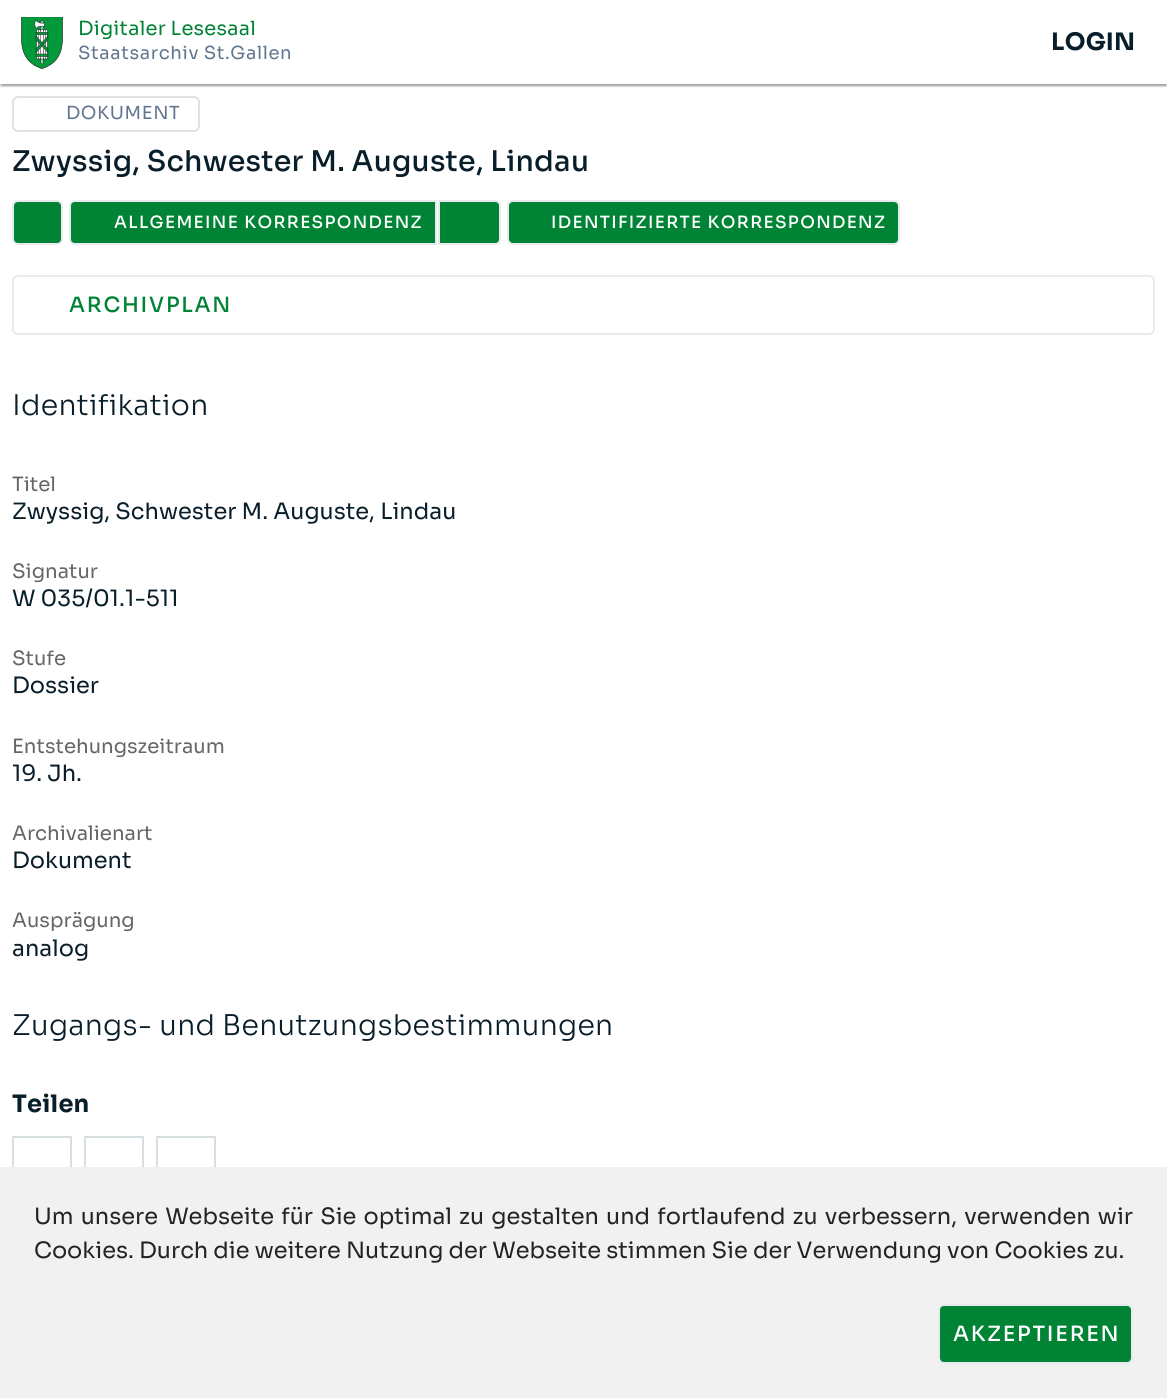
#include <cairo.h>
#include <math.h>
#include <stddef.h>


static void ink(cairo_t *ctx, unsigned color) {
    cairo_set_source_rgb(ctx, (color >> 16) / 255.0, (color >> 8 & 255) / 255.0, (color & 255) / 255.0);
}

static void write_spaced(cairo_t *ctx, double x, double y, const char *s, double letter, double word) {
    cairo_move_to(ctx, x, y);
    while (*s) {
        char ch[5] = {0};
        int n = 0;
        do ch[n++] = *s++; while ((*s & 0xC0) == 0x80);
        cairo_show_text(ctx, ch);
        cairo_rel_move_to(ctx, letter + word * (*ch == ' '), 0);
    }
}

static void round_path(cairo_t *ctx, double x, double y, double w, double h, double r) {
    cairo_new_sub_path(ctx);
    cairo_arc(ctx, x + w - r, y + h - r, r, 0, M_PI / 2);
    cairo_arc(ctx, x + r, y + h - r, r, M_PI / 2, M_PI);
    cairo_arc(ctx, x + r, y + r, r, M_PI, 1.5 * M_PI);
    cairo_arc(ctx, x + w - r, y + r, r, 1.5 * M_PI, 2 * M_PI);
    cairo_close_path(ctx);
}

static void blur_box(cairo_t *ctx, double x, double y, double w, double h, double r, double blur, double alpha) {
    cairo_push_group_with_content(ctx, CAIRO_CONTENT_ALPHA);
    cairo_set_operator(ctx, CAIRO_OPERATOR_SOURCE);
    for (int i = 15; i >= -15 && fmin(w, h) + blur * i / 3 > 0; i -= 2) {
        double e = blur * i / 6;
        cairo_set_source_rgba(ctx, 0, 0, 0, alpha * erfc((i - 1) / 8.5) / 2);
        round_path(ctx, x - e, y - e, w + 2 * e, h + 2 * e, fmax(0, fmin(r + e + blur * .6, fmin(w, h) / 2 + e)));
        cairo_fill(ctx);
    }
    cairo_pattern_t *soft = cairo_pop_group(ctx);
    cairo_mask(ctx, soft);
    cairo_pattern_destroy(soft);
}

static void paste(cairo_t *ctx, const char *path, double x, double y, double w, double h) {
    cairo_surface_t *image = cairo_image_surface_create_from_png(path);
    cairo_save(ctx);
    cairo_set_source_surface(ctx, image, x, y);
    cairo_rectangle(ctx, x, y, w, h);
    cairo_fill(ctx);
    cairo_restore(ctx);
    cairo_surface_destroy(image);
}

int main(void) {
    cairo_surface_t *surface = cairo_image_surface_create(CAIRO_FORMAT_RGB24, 1167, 1398);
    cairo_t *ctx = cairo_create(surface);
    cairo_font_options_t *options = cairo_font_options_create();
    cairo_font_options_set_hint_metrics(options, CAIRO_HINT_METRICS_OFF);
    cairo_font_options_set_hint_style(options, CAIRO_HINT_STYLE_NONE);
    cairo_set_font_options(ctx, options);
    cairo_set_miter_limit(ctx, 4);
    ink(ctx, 0xFFFFFF);
    cairo_paint(ctx);
    cairo_save(ctx);
    cairo_rectangle(ctx, 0, 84, 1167, 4);
    cairo_clip(ctx);
    ink(ctx, 0x000000);
    blur_box(ctx, 0, 2, 1167, 84, 0, 2, 0.12);
    cairo_restore(ctx);
    cairo_save(ctx);
    cairo_rectangle(ctx, 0, 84, 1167, 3);
    cairo_clip(ctx);
    ink(ctx, 0x000000);
    blur_box(ctx, 0, 2, 1167, 84, 0, 1, 0.14);
    cairo_restore(ctx);
    cairo_save(ctx);
    cairo_rectangle(ctx, 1, 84, 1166, 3);
    cairo_clip(ctx);
    ink(ctx, 0x000000);
    blur_box(ctx, 2, 5, 1164, 81, 0, 1, 0.2);
    cairo_restore(ctx);
    paste(ctx, "media/1.png", 21, 17, 42, 52);
    cairo_select_font_face(ctx, "Sora", CAIRO_FONT_SLANT_NORMAL, CAIRO_FONT_WEIGHT_NORMAL);
    cairo_set_font_size(ctx, 19.5);
    ink(ctx, 0x008334);
    write_spaced(ctx, 78, 35, "Digitaler Lesesaal", 0.25, 0);
    cairo_set_font_size(ctx, 18);
    ink(ctx, 0x61758F);
    write_spaced(ctx, 78, 59, "Staatsarchiv St.Gallen", 0.6, 0);
    cairo_select_font_face(ctx, "Sora", CAIRO_FONT_SLANT_NORMAL, CAIRO_FONT_WEIGHT_BOLD);
    cairo_set_font_size(ctx, 24);
    ink(ctx, 0x091E2B);
    write_spaced(ctx, 1051, 50, "LOGIN", 0.25, 0);
    round_path(ctx, 13, 97, 186, 34, 5);
    ink(ctx, 0xE0E0E0);
    cairo_stroke(ctx);
    cairo_select_font_face(ctx, "Sora", CAIRO_FONT_SLANT_NORMAL, CAIRO_FONT_WEIGHT_NORMAL);
    cairo_set_font_size(ctx, 18);
    ink(ctx, 0x61758F);
    write_spaced(ctx, 66, 119, "DOKUMENT", 0.6, 0);
    cairo_select_font_face(ctx, "Sora Medium", CAIRO_FONT_SLANT_NORMAL, CAIRO_FONT_WEIGHT_NORMAL);
    cairo_set_font_size(ctx, 28.5);
    ink(ctx, 0x091E2B);
    write_spaced(ctx, 12, 171, "Zwyssig, Schwester M. Auguste, Lindau", 0.25, 0);
    ink(ctx, 0x008334);
    round_path(ctx, 13, 201, 49, 43, 5);
    cairo_fill_preserve(ctx);
    ink(ctx, 0xE7EBED);
    cairo_stroke(ctx);
    ink(ctx, 0x008334);
    cairo_new_path(ctx);
    cairo_move_to(ctx, 75, 201);
    cairo_line_to(ctx, 436, 201);
    cairo_line_to(ctx, 436, 244);
    cairo_line_to(ctx, 75, 244);
    cairo_curve_to(ctx, 72, 244, 70, 242, 70, 239);
    cairo_line_to(ctx, 70, 206);
    cairo_curve_to(ctx, 70, 203, 72, 201, 75, 201);
    cairo_close_path(ctx);
    cairo_fill_preserve(ctx);
    ink(ctx, 0xE7EBED);
    cairo_stroke(ctx);
    cairo_set_font_size(ctx, 16.9);
    ink(ctx, 0xFFFFFF);
    write_spaced(ctx, 114, 228, "ALLGEMEINE KORRESPONDENZ", 1.35, 0);
    ink(ctx, 0x008334);
    cairo_new_path(ctx);
    cairo_move_to(ctx, 439, 201);
    cairo_line_to(ctx, 495, 201);
    cairo_curve_to(ctx, 498, 201, 500, 203, 500, 206);
    cairo_line_to(ctx, 500, 239);
    cairo_curve_to(ctx, 500, 242, 498, 244, 495, 244);
    cairo_line_to(ctx, 439, 244);
    cairo_close_path(ctx);
    cairo_fill_preserve(ctx);
    ink(ctx, 0xE7EBED);
    cairo_stroke(ctx);
    ink(ctx, 0x008334);
    round_path(ctx, 508, 201, 391, 43, 5);
    cairo_fill_preserve(ctx);
    ink(ctx, 0xE7EBED);
    cairo_stroke(ctx);
    ink(ctx, 0xFFFFFF);
    write_spaced(ctx, 551, 228, "IDENTIFIZIERTE KORRESPONDENZ", 1.35, 0);
    round_path(ctx, 13, 276, 1141, 58, 5);
    ink(ctx, 0xE7EBED);
    cairo_stroke(ctx);
    cairo_set_font_size(ctx, 21);
    ink(ctx, 0x008334);
    write_spaced(ctx, 69, 312, "ARCHIVPLAN", 1.75, 0);
    cairo_select_font_face(ctx, "Sora Light", CAIRO_FONT_SLANT_NORMAL, CAIRO_FONT_WEIGHT_NORMAL);
    cairo_set_font_size(ctx, 28.5);
    ink(ctx, 0x091E2B);
    write_spaced(ctx, 12, 415, "Identifikation", 0.25, 0);
    cairo_select_font_face(ctx, "Sora", CAIRO_FONT_SLANT_NORMAL, CAIRO_FONT_WEIGHT_NORMAL);
    cairo_set_font_size(ctx, 19.75);
    ink(ctx, 0x666666);
    cairo_move_to(ctx, 12, 491);
    cairo_show_text(ctx, "Titel");
    cairo_set_font_size(ctx, 22.5);
    ink(ctx, 0x091E2B);
    cairo_move_to(ctx, 12, 519);
    cairo_show_text(ctx, "Zwyssig, Schwester M. Auguste, Lindau");
    cairo_set_font_size(ctx, 19.75);
    ink(ctx, 0x666666);
    cairo_move_to(ctx, 12, 578);
    cairo_show_text(ctx, "Signatur");
    cairo_set_font_size(ctx, 22.5);
    ink(ctx, 0x091E2B);
    cairo_move_to(ctx, 12, 606);
    cairo_show_text(ctx, "W 035/01.1-511");
    cairo_set_font_size(ctx, 19.75);
    ink(ctx, 0x666666);
    cairo_move_to(ctx, 12, 665);
    cairo_show_text(ctx, "Stufe");
    cairo_set_font_size(ctx, 22.5);
    ink(ctx, 0x091E2B);
    cairo_move_to(ctx, 12, 693);
    cairo_show_text(ctx, "Dossier");
    cairo_set_font_size(ctx, 19.75);
    ink(ctx, 0x666666);
    cairo_move_to(ctx, 12, 753);
    cairo_show_text(ctx, "Entstehungszeitraum");
    cairo_set_font_size(ctx, 22.5);
    ink(ctx, 0x091E2B);
    cairo_move_to(ctx, 12, 781);
    cairo_show_text(ctx, "19. Jh.");
    cairo_set_font_size(ctx, 19.75);
    ink(ctx, 0x666666);
    cairo_move_to(ctx, 12, 840);
    cairo_show_text(ctx, "Archivalienart");
    cairo_set_font_size(ctx, 22.5);
    ink(ctx, 0x091E2B);
    cairo_move_to(ctx, 12, 868);
    cairo_show_text(ctx, "Dokument");
    cairo_set_font_size(ctx, 19.75);
    ink(ctx, 0x666666);
    cairo_move_to(ctx, 12, 927);
    cairo_show_text(ctx, "Ausprägung");
    cairo_set_font_size(ctx, 22.5);
    ink(ctx, 0x091E2B);
    cairo_move_to(ctx, 12, 956);
    cairo_show_text(ctx, "analog");
    cairo_select_font_face(ctx, "Sora Light", CAIRO_FONT_SLANT_NORMAL, CAIRO_FONT_WEIGHT_NORMAL);
    cairo_set_font_size(ctx, 28.5);
    write_spaced(ctx, 12, 1035, "Zugangs- und Benutzungsbestimmungen", 0.25, 0);
    cairo_select_font_face(ctx, "Sora", CAIRO_FONT_SLANT_NORMAL, CAIRO_FONT_WEIGHT_BOLD);
    cairo_set_font_size(ctx, 24);
    write_spaced(ctx, 12, 1112, "Teilen", 0.25, 0);
    cairo_rectangle(ctx, 13, 1137, 58, 58);
    ink(ctx, 0xD8DFE2);
    cairo_stroke(ctx);
    cairo_rectangle(ctx, 85, 1137, 58, 58);
    cairo_stroke(ctx);
    cairo_rectangle(ctx, 157, 1137, 58, 58);
    cairo_stroke(ctx);
    ink(ctx, 0xF1F1F1);
    cairo_rectangle(ctx, 0, 1167, 1167, 231);
    cairo_fill(ctx);
    cairo_select_font_face(ctx, "Sora", CAIRO_FONT_SLANT_NORMAL, CAIRO_FONT_WEIGHT_NORMAL);
    cairo_set_font_size(ctx, 22.5);
    ink(ctx, 0x232323);
    write_spaced(ctx, 34, 1224, "Um unsere Webseite für Sie optimal zu gestalten und fortlaufend zu verbessern, verwenden wir", 0, 2);
    cairo_move_to(ctx, 34, 1258);
    cairo_show_text(ctx, "Cookies. Durch die weitere Nutzung der Webseite stimmen Sie der Verwendung von Cookies zu.");
    ink(ctx, 0x008334);
    round_path(ctx, 939, 1305, 193, 58, 5);
    cairo_fill_preserve(ctx);
    ink(ctx, 0xE7EBED);
    cairo_stroke(ctx);
    cairo_select_font_face(ctx, "Sora Medium", CAIRO_FONT_SLANT_NORMAL, CAIRO_FONT_WEIGHT_NORMAL);
    cairo_set_font_size(ctx, 21);
    ink(ctx, 0xFFFFFF);
    write_spaced(ctx, 953, 1341, "AKZEPTIEREN", 1.75, 0);
    cairo_surface_write_to_png(surface, "image.png");
    cairo_font_options_destroy(options);
    cairo_destroy(ctx);
    cairo_surface_destroy(surface);
    return 0;
}
